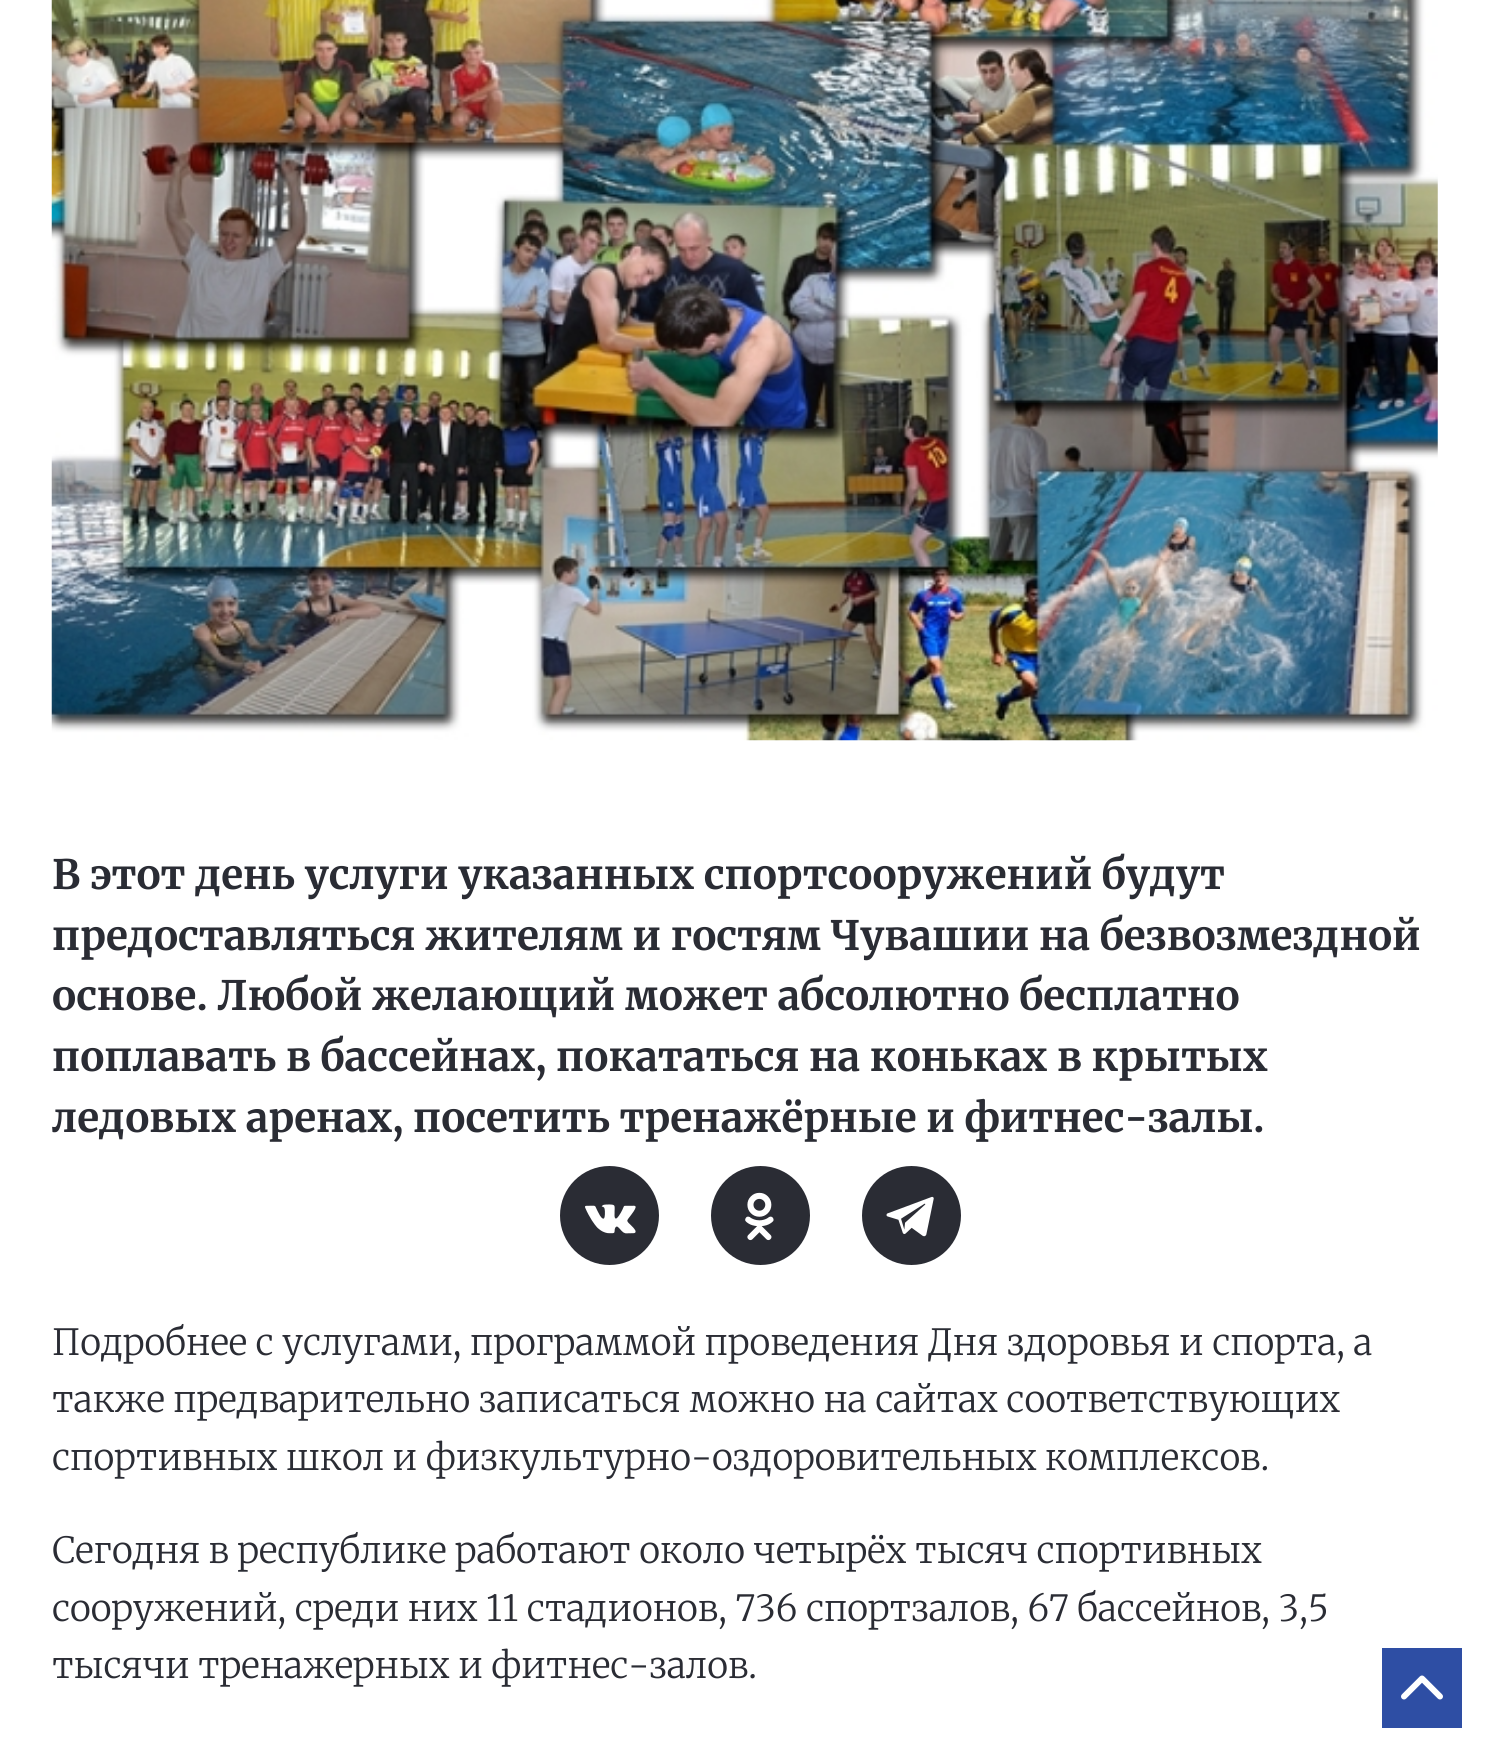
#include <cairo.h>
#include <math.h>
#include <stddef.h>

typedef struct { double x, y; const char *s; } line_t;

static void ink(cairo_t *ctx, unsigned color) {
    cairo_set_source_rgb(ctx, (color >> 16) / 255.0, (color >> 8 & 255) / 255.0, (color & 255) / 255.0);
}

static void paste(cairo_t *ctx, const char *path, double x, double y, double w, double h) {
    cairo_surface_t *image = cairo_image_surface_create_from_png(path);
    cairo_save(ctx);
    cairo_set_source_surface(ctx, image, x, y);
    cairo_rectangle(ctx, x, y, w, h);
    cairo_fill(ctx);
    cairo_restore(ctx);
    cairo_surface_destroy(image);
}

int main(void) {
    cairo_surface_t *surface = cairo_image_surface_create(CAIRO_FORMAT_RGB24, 1488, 1753);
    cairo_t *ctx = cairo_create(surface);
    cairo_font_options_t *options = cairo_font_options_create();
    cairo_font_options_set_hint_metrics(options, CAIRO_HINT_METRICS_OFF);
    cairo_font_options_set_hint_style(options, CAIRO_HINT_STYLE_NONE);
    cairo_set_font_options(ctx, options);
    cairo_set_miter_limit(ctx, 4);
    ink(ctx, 0xFFFFFF);
    cairo_paint(ctx);
    paste(ctx, "media/1.png", 51, 0, 1387, 741);
    cairo_select_font_face(ctx, "Merriweather", CAIRO_FONT_SLANT_NORMAL, CAIRO_FONT_WEIGHT_BOLD);
    cairo_set_font_size(ctx, 40.5);
    ink(ctx, 0x2A2C34);
    {
        static const line_t items[] = {
            {52, 889, "В этот день услуги указанных спортсооружений будут"},
            {52, 950, "предоставляться жителям и гостям Чувашии на безвозмездной"},
            {52, 1010, "основе. Любой желающий может абсолютно бесплатно"},
            {52, 1071, "поплавать в бассейнах, покататься на коньках в крытых"},
            {52, 1132, "ледовых аренах, посетить тренажёрные и фитнес-залы."},
        };
        for (size_t i = 0; i < sizeof items / sizeof *items; i++) {
            cairo_move_to(ctx, items[i].x, items[i].y);
            cairo_show_text(ctx, items[i].s);
        }
    }
    cairo_new_path(ctx);
    cairo_arc(ctx, 609.5, 1215.5, 49.5, 0, 2 * M_PI);
    cairo_fill(ctx);
    paste(ctx, "media/2.png", 585, 1204, 51, 30);
    cairo_arc(ctx, 760.5, 1215.5, 49.5, 0, 2 * M_PI);
    cairo_fill(ctx);
    paste(ctx, "media/3.png", 745, 1192, 29, 49);
    cairo_arc(ctx, 911.5, 1215.5, 49.5, 0, 2 * M_PI);
    cairo_fill(ctx);
    paste(ctx, "media/4.png", 886, 1196, 48, 41);
    cairo_select_font_face(ctx, "Merriweather Light", CAIRO_FONT_SLANT_NORMAL, CAIRO_FONT_WEIGHT_NORMAL);
    cairo_set_font_size(ctx, 36);
    {
        static const line_t items[] = {
            {52, 1355, "Подробнее с услугами, программой проведения Дня здоровья и спорта, а"},
            {52, 1412, "также предварительно записаться можно на сайтах соответствующих"},
            {52, 1470, "спортивных школ и физкультурно-оздоровительных комплексов."},
            {52, 1563, "Сегодня в республике работают около четырёх тысяч спортивных"},
            {52, 1621, "сооружений, среди них 11 стадионов, 736 спортзалов, 67 бассейнов, 3,5"},
            {52, 1678, "тысячи тренажерных и фитнес-залов."},
        };
        for (size_t i = 0; i < sizeof items / sizeof *items; i++) {
            cairo_move_to(ctx, items[i].x, items[i].y);
            cairo_show_text(ctx, items[i].s);
        }
    }
    ink(ctx, 0x2E4EA4);
    cairo_rectangle(ctx, 1382, 1648, 80, 80);
    cairo_fill(ctx);
    paste(ctx, "media/5.png", 1401, 1675, 42, 25);
    cairo_surface_write_to_png(surface, "image.png");
    cairo_font_options_destroy(options);
    cairo_destroy(ctx);
    cairo_surface_destroy(surface);
    return 0;
}
